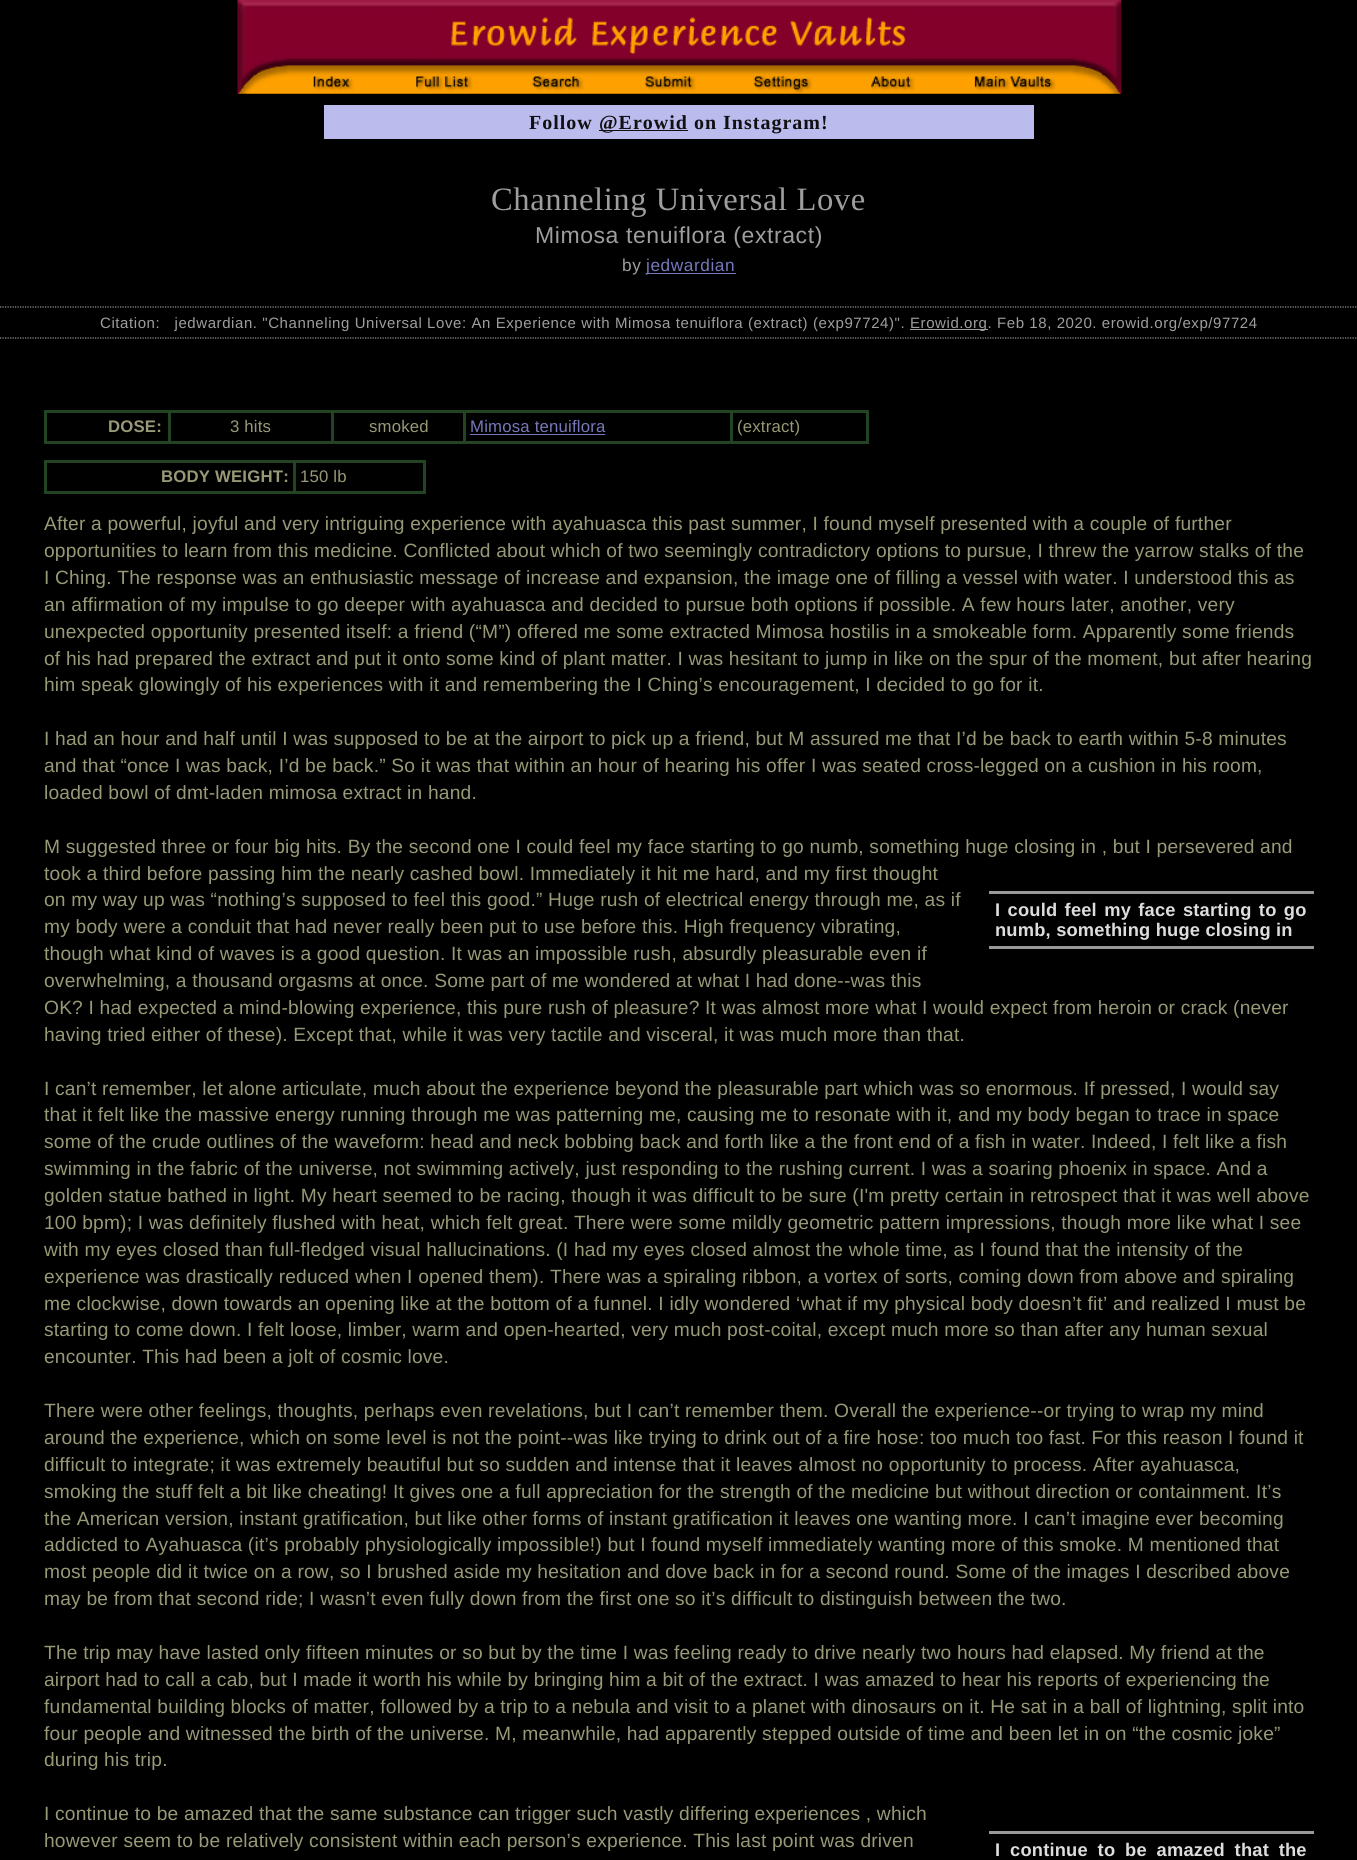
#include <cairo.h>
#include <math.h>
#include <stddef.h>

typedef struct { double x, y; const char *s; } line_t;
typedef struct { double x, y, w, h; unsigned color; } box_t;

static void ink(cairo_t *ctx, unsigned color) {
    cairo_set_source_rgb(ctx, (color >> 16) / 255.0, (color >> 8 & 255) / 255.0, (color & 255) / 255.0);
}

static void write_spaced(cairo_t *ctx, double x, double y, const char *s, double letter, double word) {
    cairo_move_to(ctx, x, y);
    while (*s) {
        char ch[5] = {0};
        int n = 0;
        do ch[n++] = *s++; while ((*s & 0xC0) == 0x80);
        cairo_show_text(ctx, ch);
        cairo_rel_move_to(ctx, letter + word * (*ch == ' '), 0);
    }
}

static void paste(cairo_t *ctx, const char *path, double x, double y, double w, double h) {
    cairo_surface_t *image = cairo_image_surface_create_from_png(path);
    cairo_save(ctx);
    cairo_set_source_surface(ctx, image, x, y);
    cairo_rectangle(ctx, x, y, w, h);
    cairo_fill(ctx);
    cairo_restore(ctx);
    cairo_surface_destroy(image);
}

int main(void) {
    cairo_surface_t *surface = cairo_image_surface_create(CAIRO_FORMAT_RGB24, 1357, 1860);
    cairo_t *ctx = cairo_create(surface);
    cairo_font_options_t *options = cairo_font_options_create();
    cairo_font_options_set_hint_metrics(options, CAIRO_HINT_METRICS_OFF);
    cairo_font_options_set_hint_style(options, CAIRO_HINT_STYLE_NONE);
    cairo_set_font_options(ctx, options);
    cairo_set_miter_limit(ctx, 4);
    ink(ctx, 0x000000);
    cairo_paint(ctx);
    paste(ctx, "media/1.png", 237, 0, 885, 94);
    ink(ctx, 0xBBBBEE);
    cairo_rectangle(ctx, 324, 105, 710, 34);
    cairo_fill(ctx);
    cairo_select_font_face(ctx, "Liberation Serif", CAIRO_FONT_SLANT_NORMAL, CAIRO_FONT_WEIGHT_BOLD);
    cairo_set_font_size(ctx, 20);
    ink(ctx, 0x111111);
    write_spaced(ctx, 529, 129, "Follow", 1, 0);
    cairo_rectangle(ctx, 599, 130, 89, 1);
    cairo_fill(ctx);
    write_spaced(ctx, 599, 129, "@Erowid on Instagram!", 1, 0);
    cairo_select_font_face(ctx, "Liberation Serif", CAIRO_FONT_SLANT_NORMAL, CAIRO_FONT_WEIGHT_NORMAL);
    cairo_set_font_size(ctx, 32.6);
    ink(ctx, 0x9E9E9E);
    write_spaced(ctx, 491, 210, "Channeling Universal Love", 0.58, 0);
    cairo_select_font_face(ctx, "Liberation Sans", CAIRO_FONT_SLANT_NORMAL, CAIRO_FONT_WEIGHT_NORMAL);
    cairo_set_font_size(ctx, 23);
    write_spaced(ctx, 535, 243, "Mimosa tenuiflora (extract)", 0.58, 0);
    cairo_set_font_size(ctx, 17.25);
    write_spaced(ctx, 622, 271, "by", 0.58, 0);
    ink(ctx, 0x7777BB);
    cairo_rectangle(ctx, 646, 273, 90, 1);
    cairo_fill(ctx);
    write_spaced(ctx, 646, 271, "jedwardian", 0.58, 0);
    cairo_new_path(ctx);
    cairo_move_to(ctx, 0, 307);
    cairo_line_to(ctx, 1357.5, 307);
    ink(ctx, 0x999999);
    cairo_set_line_width(ctx, 1.2);
    cairo_set_dash(ctx, (double[]){1.25, 1.25}, 2, 0);
    cairo_stroke(ctx);
    cairo_new_path(ctx);
    cairo_move_to(ctx, 0, 338);
    cairo_line_to(ctx, 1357.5, 338);
    cairo_stroke(ctx);
    cairo_set_font_size(ctx, 15);
    ink(ctx, 0x9E9E9E);
    write_spaced(ctx, 100, 328, "Citation:   jedwardian. \"Channeling Universal Love: An Experience with Mimosa tenuiflora (extract) (exp97724)\".", 0.58, 0);
    cairo_rectangle(ctx, 910, 329, 78, 1);
    cairo_fill(ctx);
    write_spaced(ctx, 910, 328, "Erowid.org. Feb 18, 2020. erowid.org/exp/97724", 0.58, 0);
    {
        static const box_t items[] = {
            {730, 410, 139, 3, 0x224422},
            {866, 410, 3, 34, 0x224422},
            {730, 441, 139, 3, 0x224422},
            {730, 410, 3, 34, 0x224422},
            {463, 410, 270, 3, 0x224422},
            {463, 441, 270, 3, 0x224422},
            {463, 410, 3, 34, 0x224422},
            {331, 410, 134, 3, 0x224422},
            {331, 441, 134, 3, 0x224422},
            {331, 410, 3, 34, 0x224422},
            {168, 410, 166, 3, 0x224422},
            {168, 441, 166, 3, 0x224422},
            {168, 410, 3, 34, 0x224422},
            {44, 410, 126, 3, 0x224422},
            {44, 441, 126, 3, 0x224422},
            {44, 410, 3, 34, 0x224422},
        };
        for (size_t i = 0; i < sizeof items / sizeof *items; i++) {
            ink(ctx, items[i].color);
            cairo_rectangle(ctx, items[i].x, items[i].y, items[i].w, items[i].h);
            cairo_fill(ctx);
        }
    }
    cairo_select_font_face(ctx, "Liberation Sans", CAIRO_FONT_SLANT_NORMAL, CAIRO_FONT_WEIGHT_BOLD);
    cairo_set_font_size(ctx, 16.75);
    ink(ctx, 0x999977);
    write_spaced(ctx, 108, 432, "DOSE:", 0.19, 0);
    cairo_select_font_face(ctx, "Liberation Sans", CAIRO_FONT_SLANT_NORMAL, CAIRO_FONT_WEIGHT_NORMAL);
    write_spaced(ctx, 230, 432, "3 hits", 0.19, 0);
    write_spaced(ctx, 369, 432, "smoked", 0.19, 0);
    ink(ctx, 0x7777BB);
    write_spaced(ctx, 470, 432, "Mimosa tenuiflora", 0.19, 0);
    cairo_rectangle(ctx, 470, 434, 135, 1);
    cairo_fill(ctx);
    ink(ctx, 0x999977);
    write_spaced(ctx, 737, 432, "(extract)", 0.19, 0);
    {
        static const box_t items[] = {
            {293, 460, 132, 3, 0x224422},
            {423, 460, 3, 34, 0x224422},
            {293, 491, 132, 3, 0x224422},
            {293, 460, 3, 34, 0x224422},
            {44, 460, 251, 3, 0x224422},
            {44, 491, 251, 3, 0x224422},
            {44, 460, 3, 34, 0x224422},
        };
        for (size_t i = 0; i < sizeof items / sizeof *items; i++) {
            ink(ctx, items[i].color);
            cairo_rectangle(ctx, items[i].x, items[i].y, items[i].w, items[i].h);
            cairo_fill(ctx);
        }
    }
    cairo_select_font_face(ctx, "Liberation Sans", CAIRO_FONT_SLANT_NORMAL, CAIRO_FONT_WEIGHT_BOLD);
    ink(ctx, 0x999977);
    write_spaced(ctx, 161, 482, "BODY WEIGHT:", 0.19, 0);
    cairo_select_font_face(ctx, "Liberation Sans", CAIRO_FONT_SLANT_NORMAL, CAIRO_FONT_WEIGHT_NORMAL);
    write_spaced(ctx, 300, 482, "150 lb", 0.19, 0);
    cairo_set_font_size(ctx, 19.2);
    {
        static const line_t items[] = {
            {44, 530, "After a powerful, joyful and very intriguing experience with ayahuasca this past summer, I found myself presented with a couple of further"},
            {44, 557, "opportunities to learn from this medicine. Conflicted about which of two seemingly contradictory options to pursue, I threw the yarrow stalks of the"},
            {44, 584, "I Ching. The response was an enthusiastic message of increase and expansion, the image one of filling a vessel with water. I understood this as"},
            {44, 611, "an affirmation of my impulse to go deeper with ayahuasca and decided to pursue both options if possible. A few hours later, another, very"},
            {44, 638, "unexpected opportunity presented itself: a friend (“M”) offered me some extracted Mimosa hostilis in a smokeable form. Apparently some friends"},
            {44, 665, "of his had prepared the extract and put it onto some kind of plant matter. I was hesitant to jump in like on the spur of the moment, but after hearing"},
            {44, 691, "him speak glowingly of his experiences with it and remembering the I Ching’s encouragement, I decided to go for it."},
            {44, 745, "I had an hour and half until I was supposed to be at the airport to pick up a friend, but M assured me that I’d be back to earth within 5-8 minutes"},
            {44, 772, "and that “once I was back, I’d be back.” So it was that within an hour of hearing his offer I was seated cross-legged on a cushion in his room,"},
            {44, 799, "loaded bowl of dmt-laden mimosa extract in hand."},
            {44, 853, "M suggested three or four big hits. By the second one I could feel my face starting to go numb, something huge closing in , but I persevered and"},
            {44, 880, "took a third before passing him the nearly cashed bowl. Immediately it hit me hard, and my first thought"},
            {44, 906, "on my way up was “nothing’s supposed to feel this good.” Huge rush of electrical energy through me, as if"},
        };
        for (size_t i = 0; i < sizeof items / sizeof *items; i++) {
            write_spaced(ctx, items[i].x, items[i].y, items[i].s, 0.19, 0);
        }
    }
    ink(ctx, 0x999999);
    cairo_rectangle(ctx, 989, 891, 325, 3);
    cairo_fill(ctx);
    cairo_rectangle(ctx, 989, 946, 325, 3);
    cairo_fill(ctx);
    cairo_select_font_face(ctx, "Liberation Sans", CAIRO_FONT_SLANT_NORMAL, CAIRO_FONT_WEIGHT_BOLD);
    cairo_set_font_size(ctx, 18.3);
    ink(ctx, 0xDDDDDD);
    write_spaced(ctx, 995, 916, "I could feel my face starting to go", 0.19, 2);
    write_spaced(ctx, 995, 936, "numb, something huge closing in", 0.19, 0);
    cairo_select_font_face(ctx, "Liberation Sans", CAIRO_FONT_SLANT_NORMAL, CAIRO_FONT_WEIGHT_NORMAL);
    cairo_set_font_size(ctx, 19.2);
    ink(ctx, 0x999977);
    {
        static const line_t items[] = {
            {44, 933, "my body were a conduit that had never really been put to use before this. High frequency vibrating,"},
            {44, 960, "though what kind of waves is a good question. It was an impossible rush, absurdly pleasurable even if"},
            {44, 987, "overwhelming, a thousand orgasms at once. Some part of me wondered at what I had done--was this"},
            {44, 1014, "OK? I had expected a mind-blowing experience, this pure rush of pleasure? It was almost more what I would expect from heroin or crack (never"},
            {44, 1041, "having tried either of these). Except that, while it was very tactile and visceral, it was much more than that."},
            {44, 1095, "I can’t remember, let alone articulate, much about the experience beyond the pleasurable part which was so enormous. If pressed, I would say"},
            {44, 1121, "that it felt like the massive energy running through me was patterning me, causing me to resonate with it, and my body began to trace in space"},
            {44, 1148, "some of the crude outlines of the waveform: head and neck bobbing back and forth like a the front end of a fish in water. Indeed, I felt like a fish"},
            {44, 1175, "swimming in the fabric of the universe, not swimming actively, just responding to the rushing current. I was a soaring phoenix in space. And a"},
            {44, 1202, "golden statue bathed in light. My heart seemed to be racing, though it was difficult to be sure (I'm pretty certain in retrospect that it was well above"},
            {44, 1229, "100 bpm); I was definitely flushed with heat, which felt great. There were some mildly geometric pattern impressions, though more like what I see"},
            {44, 1256, "with my eyes closed than full-fledged visual hallucinations. (I had my eyes closed almost the whole time, as I found that the intensity of the"},
            {44, 1283, "experience was drastically reduced when I opened them). There was a spiraling ribbon, a vortex of sorts, coming down from above and spiraling"},
            {44, 1310, "me clockwise, down towards an opening like at the bottom of a funnel. I idly wondered ‘what if my physical body doesn’t fit’ and realized I must be"},
            {44, 1336, "starting to come down. I felt loose, limber, warm and open-hearted, very much post-coital, except much more so than after any human sexual"},
            {44, 1363, "encounter. This had been a jolt of cosmic love."},
            {44, 1417, "There were other feelings, thoughts, perhaps even revelations, but I can’t remember them. Overall the experience--or trying to wrap my mind"},
            {44, 1444, "around the experience, which on some level is not the point--was like trying to drink out of a fire hose: too much too fast. For this reason I found it"},
            {44, 1471, "difficult to integrate; it was extremely beautiful but so sudden and intense that it leaves almost no opportunity to process. After ayahuasca,"},
            {44, 1498, "smoking the stuff felt a bit like cheating! It gives one a full appreciation for the strength of the medicine but without direction or containment. It’s"},
            {44, 1525, "the American version, instant gratification, but like other forms of instant gratification it leaves one wanting more. I can’t imagine ever becoming"},
            {44, 1551, "addicted to Ayahuasca (it’s probably physiologically impossible!) but I found myself immediately wanting more of this smoke. M mentioned that"},
            {44, 1578, "most people did it twice on a row, so I brushed aside my hesitation and dove back in for a second round. Some of the images I described above"},
            {44, 1605, "may be from that second ride; I wasn’t even fully down from the first one so it’s difficult to distinguish between the two."},
            {44, 1659, "The trip may have lasted only fifteen minutes or so but by the time I was feeling ready to drive nearly two hours had elapsed. My friend at the"},
            {44, 1686, "airport had to call a cab, but I made it worth his while by bringing him a bit of the extract. I was amazed to hear his reports of experiencing the"},
            {44, 1713, "fundamental building blocks of matter, followed by a trip to a nebula and visit to a planet with dinosaurs on it. He sat in a ball of lightning, split into"},
            {44, 1740, "four people and witnessed the birth of the universe. M, meanwhile, had apparently stepped outside of time and been let in on “the cosmic joke”"},
            {44, 1766, "during his trip."},
            {44, 1820, "I continue to be amazed that the same substance can trigger such vastly differing experiences , which"},
            {44, 1847, "however seem to be relatively consistent within each person’s experience. This last point was driven"},
        };
        for (size_t i = 0; i < sizeof items / sizeof *items; i++) {
            write_spaced(ctx, items[i].x, items[i].y, items[i].s, 0.19, 0);
        }
    }
    ink(ctx, 0x999999);
    cairo_rectangle(ctx, 989, 1831, 325, 3);
    cairo_fill(ctx);
    cairo_select_font_face(ctx, "Liberation Sans", CAIRO_FONT_SLANT_NORMAL, CAIRO_FONT_WEIGHT_BOLD);
    cairo_set_font_size(ctx, 18.3);
    ink(ctx, 0xDDDDDD);
    write_spaced(ctx, 995, 1856, "I continue to be amazed that the", 0.19, 4.5);
    cairo_surface_write_to_png(surface, "image.png");
    cairo_font_options_destroy(options);
    cairo_destroy(ctx);
    cairo_surface_destroy(surface);
    return 0;
}
